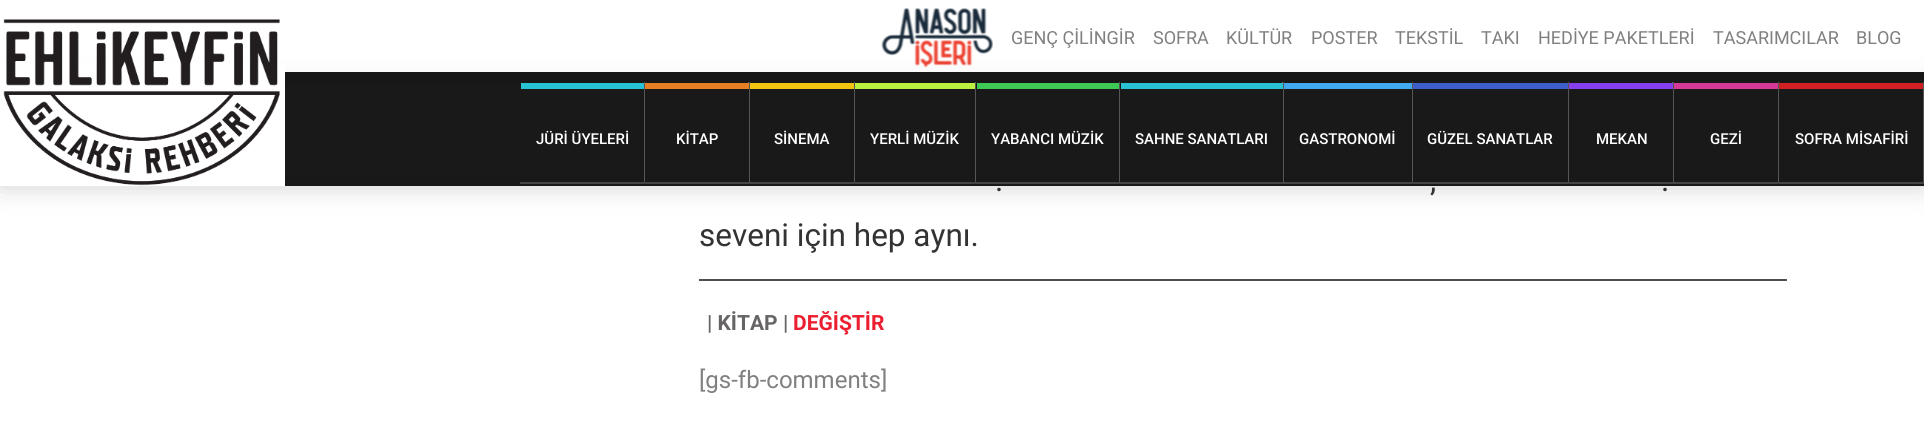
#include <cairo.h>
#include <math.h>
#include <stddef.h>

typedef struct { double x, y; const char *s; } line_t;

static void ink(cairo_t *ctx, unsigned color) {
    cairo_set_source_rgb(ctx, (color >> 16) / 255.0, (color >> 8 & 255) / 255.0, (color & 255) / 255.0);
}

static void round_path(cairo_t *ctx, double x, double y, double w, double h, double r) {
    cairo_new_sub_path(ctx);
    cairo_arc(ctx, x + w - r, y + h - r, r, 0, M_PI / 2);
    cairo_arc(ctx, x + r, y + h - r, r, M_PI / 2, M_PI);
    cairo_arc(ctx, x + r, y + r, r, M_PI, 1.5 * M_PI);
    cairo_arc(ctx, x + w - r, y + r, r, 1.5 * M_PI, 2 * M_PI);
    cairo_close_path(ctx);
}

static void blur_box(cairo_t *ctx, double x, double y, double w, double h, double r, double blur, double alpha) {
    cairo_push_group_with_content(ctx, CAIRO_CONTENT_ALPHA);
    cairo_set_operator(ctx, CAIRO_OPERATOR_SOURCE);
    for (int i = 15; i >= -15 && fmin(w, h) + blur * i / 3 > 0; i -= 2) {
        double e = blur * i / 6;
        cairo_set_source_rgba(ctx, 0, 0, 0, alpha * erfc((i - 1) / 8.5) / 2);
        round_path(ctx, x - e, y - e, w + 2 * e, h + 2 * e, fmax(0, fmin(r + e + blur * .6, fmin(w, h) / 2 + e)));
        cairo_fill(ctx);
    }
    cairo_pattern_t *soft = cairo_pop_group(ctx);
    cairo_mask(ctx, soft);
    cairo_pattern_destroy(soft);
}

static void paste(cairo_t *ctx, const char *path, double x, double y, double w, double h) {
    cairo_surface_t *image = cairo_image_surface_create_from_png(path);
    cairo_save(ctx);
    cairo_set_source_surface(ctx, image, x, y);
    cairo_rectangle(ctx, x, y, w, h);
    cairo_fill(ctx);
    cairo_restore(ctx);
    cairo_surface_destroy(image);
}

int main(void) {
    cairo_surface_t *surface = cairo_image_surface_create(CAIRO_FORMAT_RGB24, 1924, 448);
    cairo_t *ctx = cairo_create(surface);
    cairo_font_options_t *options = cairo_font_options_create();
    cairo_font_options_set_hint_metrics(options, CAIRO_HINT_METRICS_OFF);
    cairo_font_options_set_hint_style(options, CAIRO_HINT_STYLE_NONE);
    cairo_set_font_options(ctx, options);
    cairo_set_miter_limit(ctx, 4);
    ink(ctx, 0xFFFFFF);
    cairo_paint(ctx);
    ink(ctx, 0x000000);
    blur_box(ctx, 0, 2, 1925, 186, 0, 15, 0.12);
    ink(ctx, 0x191919);
    cairo_rectangle(ctx, 285, 72, 1639, 114);
    cairo_fill(ctx);
    ink(ctx, 0x000000);
    blur_box(ctx, 0, 2, 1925, 72, 0, 15, 0.12);
    ink(ctx, 0xFFFFFF);
    cairo_rectangle(ctx, 0, 0, 1924, 72);
    cairo_fill(ctx);
    paste(ctx, "media/1.png", 881, 8, 112, 60);
    cairo_select_font_face(ctx, "Roboto", CAIRO_FONT_SLANT_NORMAL, CAIRO_FONT_WEIGHT_NORMAL);
    cairo_set_font_size(ctx, 18);
    ink(ctx, 0x808080);
    {
        static const line_t items[] = {
            {1011, 44, "GENÇ ÇİLİNGİR"},
            {1153, 44, "SOFRA"},
            {1226, 44, "KÜLTÜR"},
            {1311, 44, "POSTER"},
            {1395, 44, "TEKSTİL"},
            {1481, 44, "TAKI"},
            {1538, 44, "HEDİYE PAKETLERİ"},
            {1713, 44, "TASARIMCILAR"},
            {1856, 44, "BLOG"},
        };
        for (size_t i = 0; i < sizeof items / sizeof *items; i++) {
            cairo_move_to(ctx, items[i].x, items[i].y);
            cairo_show_text(ctx, items[i].s);
        }
    }
    cairo_save(ctx);
    cairo_set_fill_rule(ctx, CAIRO_FILL_RULE_EVEN_ODD);
    cairo_new_path(ctx);
    cairo_move_to(ctx, 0, 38);
    cairo_line_to(ctx, 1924, 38);
    cairo_line_to(ctx, 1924, 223);
    cairo_line_to(ctx, 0, 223);
    cairo_close_path(ctx);
    cairo_move_to(ctx, 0, 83);
    cairo_line_to(ctx, 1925, 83);
    cairo_line_to(ctx, 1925, 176);
    cairo_line_to(ctx, 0, 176);
    cairo_close_path(ctx);
    cairo_clip(ctx);
    ink(ctx, 0x000000);
    blur_box(ctx, 0, 84, 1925, 93, 0, 15, 0.12);
    cairo_restore(ctx);
    ink(ctx, 0xFFFFFF);
    cairo_rectangle(ctx, 0, 63, 285, 123);
    cairo_fill(ctx);
    paste(ctx, "media/2.png", 3, 19, 277, 167);
    ink(ctx, 0x555555);
    cairo_new_path(ctx);
    cairo_move_to(ctx, 645, 82);
    cairo_line_to(ctx, 645, 184);
    cairo_line_to(ctx, 644, 182);
    cairo_line_to(ctx, 644, 82);
    cairo_close_path(ctx);
    cairo_fill(ctx);
    ink(ctx, 0x444444);
    cairo_new_path(ctx);
    cairo_move_to(ctx, 645, 184);
    cairo_line_to(ctx, 520, 184);
    cairo_line_to(ctx, 520, 182);
    cairo_line_to(ctx, 644, 182);
    cairo_close_path(ctx);
    cairo_fill(ctx);
    ink(ctx, 0x27C2D3);
    cairo_rectangle(ctx, 521, 83, 123, 6);
    cairo_fill(ctx);
    cairo_select_font_face(ctx, "Roboto Medium", CAIRO_FONT_SLANT_NORMAL, CAIRO_FONT_WEIGHT_NORMAL);
    cairo_set_font_size(ctx, 15);
    ink(ctx, 0xFFFFFF);
    cairo_move_to(ctx, 536, 144);
    cairo_show_text(ctx, "JÜRİ ÜYELERİ");
    ink(ctx, 0x555555);
    cairo_new_path(ctx);
    cairo_move_to(ctx, 750, 82);
    cairo_line_to(ctx, 750, 184);
    cairo_line_to(ctx, 748, 182);
    cairo_line_to(ctx, 748, 82);
    cairo_close_path(ctx);
    cairo_fill(ctx);
    ink(ctx, 0x444444);
    cairo_new_path(ctx);
    cairo_move_to(ctx, 750, 184);
    cairo_line_to(ctx, 645, 184);
    cairo_line_to(ctx, 645, 182);
    cairo_line_to(ctx, 748, 182);
    cairo_close_path(ctx);
    cairo_fill(ctx);
    ink(ctx, 0x191919);
    cairo_rectangle(ctx, 748, 89, 1, 93);
    cairo_fill(ctx);
    ink(ctx, 0xE67F24);
    cairo_rectangle(ctx, 645, 83, 104, 6);
    cairo_fill(ctx);
    ink(ctx, 0xFFFFFF);
    cairo_move_to(ctx, 676, 144);
    cairo_show_text(ctx, "KİTAP");
    ink(ctx, 0x555555);
    cairo_new_path(ctx);
    cairo_move_to(ctx, 855, 82);
    cairo_line_to(ctx, 855, 184);
    cairo_line_to(ctx, 854, 182);
    cairo_line_to(ctx, 854, 82);
    cairo_close_path(ctx);
    cairo_fill(ctx);
    ink(ctx, 0x444444);
    cairo_new_path(ctx);
    cairo_move_to(ctx, 855, 184);
    cairo_line_to(ctx, 750, 184);
    cairo_line_to(ctx, 750, 182);
    cairo_line_to(ctx, 854, 182);
    cairo_close_path(ctx);
    cairo_fill(ctx);
    ink(ctx, 0xF1C411);
    cairo_rectangle(ctx, 750, 83, 104, 6);
    cairo_fill(ctx);
    ink(ctx, 0xFFFFFF);
    cairo_move_to(ctx, 774, 144);
    cairo_show_text(ctx, "SİNEMA");
    ink(ctx, 0x555555);
    cairo_new_path(ctx);
    cairo_move_to(ctx, 976, 82);
    cairo_line_to(ctx, 976, 184);
    cairo_line_to(ctx, 975, 182);
    cairo_line_to(ctx, 975, 82);
    cairo_close_path(ctx);
    cairo_fill(ctx);
    ink(ctx, 0x444444);
    cairo_new_path(ctx);
    cairo_move_to(ctx, 976, 184);
    cairo_line_to(ctx, 855, 184);
    cairo_line_to(ctx, 855, 182);
    cairo_line_to(ctx, 975, 182);
    cairo_close_path(ctx);
    cairo_fill(ctx);
    ink(ctx, 0xBAF040);
    cairo_rectangle(ctx, 855, 83, 120, 6);
    cairo_fill(ctx);
    ink(ctx, 0xFFFFFF);
    cairo_move_to(ctx, 870, 144);
    cairo_show_text(ctx, "YERLİ MÜZİK");
    ink(ctx, 0x555555);
    cairo_new_path(ctx);
    cairo_move_to(ctx, 1120, 82);
    cairo_line_to(ctx, 1120, 184);
    cairo_line_to(ctx, 1119, 182);
    cairo_line_to(ctx, 1119, 82);
    cairo_close_path(ctx);
    cairo_fill(ctx);
    ink(ctx, 0x444444);
    cairo_new_path(ctx);
    cairo_move_to(ctx, 1120, 184);
    cairo_line_to(ctx, 976, 184);
    cairo_line_to(ctx, 976, 182);
    cairo_line_to(ctx, 1119, 182);
    cairo_close_path(ctx);
    cairo_fill(ctx);
    ink(ctx, 0x3EC954);
    cairo_rectangle(ctx, 977, 83, 142, 6);
    cairo_fill(ctx);
    ink(ctx, 0xFFFFFF);
    cairo_move_to(ctx, 991, 144);
    cairo_show_text(ctx, "YABANCI MÜZİK");
    ink(ctx, 0x555555);
    cairo_new_path(ctx);
    cairo_move_to(ctx, 1284, 82);
    cairo_line_to(ctx, 1284, 184);
    cairo_line_to(ctx, 1282, 182);
    cairo_line_to(ctx, 1282, 82);
    cairo_close_path(ctx);
    cairo_fill(ctx);
    ink(ctx, 0x444444);
    cairo_new_path(ctx);
    cairo_move_to(ctx, 1284, 184);
    cairo_line_to(ctx, 1120, 184);
    cairo_line_to(ctx, 1120, 182);
    cairo_line_to(ctx, 1282, 182);
    cairo_close_path(ctx);
    cairo_fill(ctx);
    ink(ctx, 0x191919);
    cairo_rectangle(ctx, 1282, 89, 1, 93);
    cairo_fill(ctx);
    ink(ctx, 0x28C2D3);
    cairo_rectangle(ctx, 1121, 83, 162, 6);
    cairo_fill(ctx);
    ink(ctx, 0xFFFFFF);
    cairo_move_to(ctx, 1135, 144);
    cairo_show_text(ctx, "SAHNE SANATLARI");
    ink(ctx, 0x555555);
    cairo_new_path(ctx);
    cairo_move_to(ctx, 1413, 82);
    cairo_line_to(ctx, 1413, 184);
    cairo_line_to(ctx, 1412, 182);
    cairo_line_to(ctx, 1412, 82);
    cairo_close_path(ctx);
    cairo_fill(ctx);
    ink(ctx, 0x444444);
    cairo_new_path(ctx);
    cairo_move_to(ctx, 1413, 184);
    cairo_line_to(ctx, 1284, 184);
    cairo_line_to(ctx, 1284, 182);
    cairo_line_to(ctx, 1412, 182);
    cairo_close_path(ctx);
    cairo_fill(ctx);
    ink(ctx, 0x41A9F0);
    cairo_rectangle(ctx, 1284, 83, 128, 6);
    cairo_fill(ctx);
    ink(ctx, 0xFFFFFF);
    cairo_move_to(ctx, 1299, 144);
    cairo_show_text(ctx, "GASTRONOMİ");
    ink(ctx, 0x555555);
    cairo_new_path(ctx);
    cairo_move_to(ctx, 1569, 82);
    cairo_line_to(ctx, 1569, 184);
    cairo_line_to(ctx, 1568, 182);
    cairo_line_to(ctx, 1568, 82);
    cairo_close_path(ctx);
    cairo_fill(ctx);
    ink(ctx, 0x444444);
    cairo_new_path(ctx);
    cairo_move_to(ctx, 1569, 184);
    cairo_line_to(ctx, 1413, 184);
    cairo_line_to(ctx, 1413, 182);
    cairo_line_to(ctx, 1568, 182);
    cairo_close_path(ctx);
    cairo_fill(ctx);
    ink(ctx, 0x3E5FC9);
    cairo_rectangle(ctx, 1413, 83, 155, 6);
    cairo_fill(ctx);
    ink(ctx, 0xFFFFFF);
    cairo_move_to(ctx, 1427, 144);
    cairo_show_text(ctx, "GÜZEL SANATLAR");
    ink(ctx, 0x555555);
    cairo_new_path(ctx);
    cairo_move_to(ctx, 1674, 82);
    cairo_line_to(ctx, 1674, 184);
    cairo_line_to(ctx, 1672, 182);
    cairo_line_to(ctx, 1672, 82);
    cairo_close_path(ctx);
    cairo_fill(ctx);
    ink(ctx, 0x444444);
    cairo_new_path(ctx);
    cairo_move_to(ctx, 1674, 184);
    cairo_line_to(ctx, 1569, 184);
    cairo_line_to(ctx, 1569, 182);
    cairo_line_to(ctx, 1672, 182);
    cairo_close_path(ctx);
    cairo_fill(ctx);
    ink(ctx, 0x191919);
    cairo_rectangle(ctx, 1672, 89, 1, 93);
    cairo_fill(ctx);
    ink(ctx, 0x873EED);
    cairo_rectangle(ctx, 1569, 83, 104, 6);
    cairo_fill(ctx);
    ink(ctx, 0xFFFFFF);
    cairo_move_to(ctx, 1596, 144);
    cairo_show_text(ctx, "MEKAN");
    ink(ctx, 0x555555);
    cairo_new_path(ctx);
    cairo_move_to(ctx, 1779, 82);
    cairo_line_to(ctx, 1779, 184);
    cairo_line_to(ctx, 1778, 182);
    cairo_line_to(ctx, 1778, 82);
    cairo_close_path(ctx);
    cairo_fill(ctx);
    ink(ctx, 0x444444);
    cairo_new_path(ctx);
    cairo_move_to(ctx, 1779, 184);
    cairo_line_to(ctx, 1674, 184);
    cairo_line_to(ctx, 1674, 182);
    cairo_line_to(ctx, 1778, 182);
    cairo_close_path(ctx);
    cairo_fill(ctx);
    ink(ctx, 0xD43997);
    cairo_rectangle(ctx, 1674, 83, 104, 6);
    cairo_fill(ctx);
    ink(ctx, 0xFFFFFF);
    cairo_move_to(ctx, 1710, 144);
    cairo_show_text(ctx, "GEZİ");
    ink(ctx, 0x555555);
    cairo_new_path(ctx);
    cairo_move_to(ctx, 1924, 82);
    cairo_line_to(ctx, 1924, 184);
    cairo_line_to(ctx, 1923, 182);
    cairo_line_to(ctx, 1923, 82);
    cairo_close_path(ctx);
    cairo_fill(ctx);
    ink(ctx, 0x444444);
    cairo_new_path(ctx);
    cairo_move_to(ctx, 1924, 184);
    cairo_line_to(ctx, 1779, 184);
    cairo_line_to(ctx, 1779, 182);
    cairo_line_to(ctx, 1923, 182);
    cairo_close_path(ctx);
    cairo_fill(ctx);
    ink(ctx, 0xD12024);
    cairo_rectangle(ctx, 1779, 83, 144, 6);
    cairo_fill(ctx);
    ink(ctx, 0xFFFFFF);
    cairo_move_to(ctx, 1795, 144);
    cairo_show_text(ctx, "SOFRA MİSAFİRİ");
    ink(ctx, 0x504F4F);
    cairo_rectangle(ctx, 699, 279, 1088, 2);
    cairo_fill(ctx);
    cairo_select_font_face(ctx, "Roboto", CAIRO_FONT_SLANT_NORMAL, CAIRO_FONT_WEIGHT_NORMAL);
    cairo_set_font_size(ctx, 31.5);
    ink(ctx, 0x333333);
    {
        static const line_t items[] = {
            {995, 191, "."},
            {1430, 191, ","},
            {1661, 191, "."},
            {699, 246, "seveni için hep aynı."},
        };
        for (size_t i = 0; i < sizeof items / sizeof *items; i++) {
            cairo_move_to(ctx, items[i].x, items[i].y);
            cairo_show_text(ctx, items[i].s);
        }
    }
    cairo_select_font_face(ctx, "Roboto", CAIRO_FONT_SLANT_NORMAL, CAIRO_FONT_WEIGHT_BOLD);
    cairo_set_font_size(ctx, 21);
    ink(ctx, 0x666465);
    cairo_move_to(ctx, 707, 330);
    cairo_show_text(ctx, "| KİTAP |");
    ink(ctx, 0xEC1F30);
    cairo_move_to(ctx, 793, 330);
    cairo_show_text(ctx, "DEĞİŞTİR");
    cairo_select_font_face(ctx, "Roboto", CAIRO_FONT_SLANT_NORMAL, CAIRO_FONT_WEIGHT_NORMAL);
    cairo_set_font_size(ctx, 24);
    ink(ctx, 0x808080);
    cairo_move_to(ctx, 699, 388);
    cairo_show_text(ctx, "[gs-fb-comments]");
    cairo_surface_write_to_png(surface, "image.png");
    cairo_font_options_destroy(options);
    cairo_destroy(ctx);
    cairo_surface_destroy(surface);
    return 0;
}
